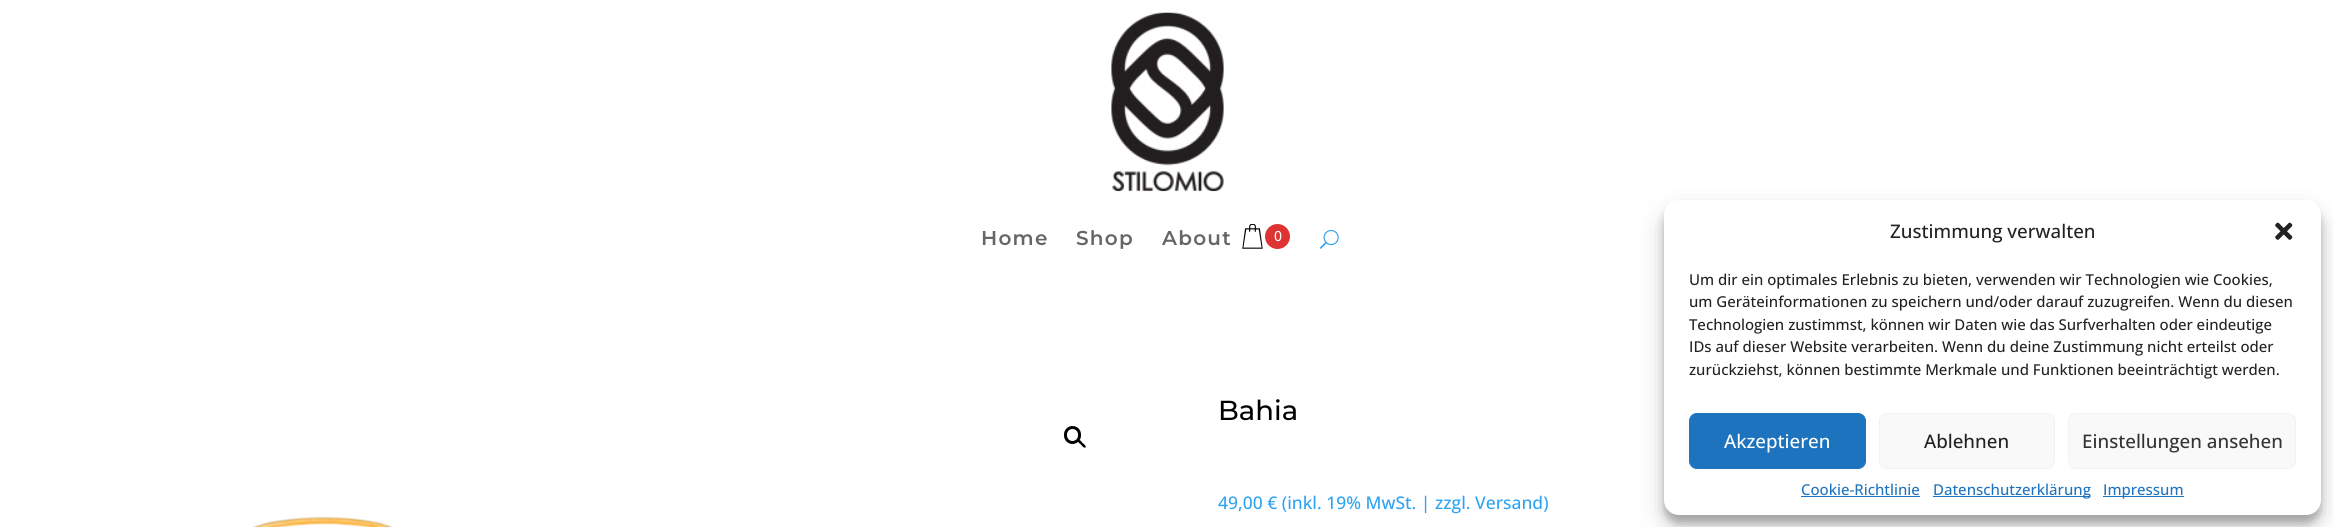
#include <cairo.h>
#include <math.h>
#include <stddef.h>

typedef struct { double x, y; const char *s; } line_t;

static void ink(cairo_t *ctx, unsigned color) {
    cairo_set_source_rgb(ctx, (color >> 16) / 255.0, (color >> 8 & 255) / 255.0, (color & 255) / 255.0);
}

static void write_spaced(cairo_t *ctx, double x, double y, const char *s, double letter, double word) {
    cairo_move_to(ctx, x, y);
    while (*s) {
        char ch[5] = {0};
        int n = 0;
        do ch[n++] = *s++; while ((*s & 0xC0) == 0x80);
        cairo_show_text(ctx, ch);
        cairo_rel_move_to(ctx, letter + word * (*ch == ' '), 0);
    }
}

static void round_path(cairo_t *ctx, double x, double y, double w, double h, double r) {
    cairo_new_sub_path(ctx);
    cairo_arc(ctx, x + w - r, y + h - r, r, 0, M_PI / 2);
    cairo_arc(ctx, x + r, y + h - r, r, M_PI / 2, M_PI);
    cairo_arc(ctx, x + r, y + r, r, M_PI, 1.5 * M_PI);
    cairo_arc(ctx, x + w - r, y + r, r, 1.5 * M_PI, 2 * M_PI);
    cairo_close_path(ctx);
}

static void blur_box(cairo_t *ctx, double x, double y, double w, double h, double r, double blur, double alpha) {
    cairo_push_group_with_content(ctx, CAIRO_CONTENT_ALPHA);
    cairo_set_operator(ctx, CAIRO_OPERATOR_SOURCE);
    for (int i = 15; i >= -15 && fmin(w, h) + blur * i / 3 > 0; i -= 2) {
        double e = blur * i / 6;
        cairo_set_source_rgba(ctx, 0, 0, 0, alpha * erfc((i - 1) / 8.5) / 2);
        round_path(ctx, x - e, y - e, w + 2 * e, h + 2 * e, fmax(0, fmin(r + e + blur * .6, fmin(w, h) / 2 + e)));
        cairo_fill(ctx);
    }
    cairo_pattern_t *soft = cairo_pop_group(ctx);
    cairo_mask(ctx, soft);
    cairo_pattern_destroy(soft);
}

static void paste(cairo_t *ctx, const char *path, double x, double y, double w, double h) {
    cairo_surface_t *image = cairo_image_surface_create_from_png(path);
    cairo_save(ctx);
    cairo_set_source_surface(ctx, image, x, y);
    cairo_rectangle(ctx, x, y, w, h);
    cairo_fill(ctx);
    cairo_restore(ctx);
    cairo_surface_destroy(image);
}

int main(void) {
    cairo_surface_t *surface = cairo_image_surface_create(CAIRO_FORMAT_RGB24, 2333, 527);
    cairo_t *ctx = cairo_create(surface);
    cairo_font_options_t *options = cairo_font_options_create();
    cairo_font_options_set_hint_metrics(options, CAIRO_HINT_METRICS_OFF);
    cairo_font_options_set_hint_style(options, CAIRO_HINT_STYLE_NONE);
    cairo_set_font_options(ctx, options);
    cairo_set_miter_limit(ctx, 4);
    ink(ctx, 0xFFFFFF);
    cairo_paint(ctx);
    paste(ctx, "media/1.png", 1111, 12, 113, 180);
    cairo_select_font_face(ctx, "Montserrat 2 Thin", CAIRO_FONT_SLANT_NORMAL, CAIRO_FONT_WEIGHT_NORMAL);
    cairo_set_font_size(ctx, 20);
    ink(ctx, 0x666666);
    {
        static const line_t items[] = {
            {981, 245, "Home"},
            {1076, 245, "Shop"},
            {1162, 245, "About"},
        };
        for (size_t i = 0; i < sizeof items / sizeof *items; i++) {
            write_spaced(ctx, items[i].x, items[i].y, items[i].s, 1.25, 0);
        }
    }
    paste(ctx, "media/2.png", 1242, 224, 21, 25);
    ink(ctx, 0xDD3333);
    cairo_arc(ctx, 1277.5, 236.5, 12.5, 0, 2 * M_PI);
    cairo_fill(ctx);
    cairo_select_font_face(ctx, "Open Sans Medium", CAIRO_FONT_SLANT_NORMAL, CAIRO_FONT_WEIGHT_NORMAL);
    cairo_set_font_size(ctx, 14);
    ink(ctx, 0xFFFFFF);
    cairo_move_to(ctx, 1274, 241);
    cairo_show_text(ctx, "0");
    paste(ctx, "media/3.png", 1320, 229, 19, 20);
    round_path(ctx, 1065.5, 427.5, 14, 15, 7);
    ink(ctx, 0x000000);
    cairo_set_line_width(ctx, 3);
    cairo_stroke(ctx);
    cairo_new_path(ctx);
    cairo_move_to(ctx, 1078, 440);
    cairo_curve_to(ctx, 1079.5, 439, 1082, 442, 1082.5, 443);
    cairo_curve_to(ctx, 1083.5, 443.5, 1086.5, 446, 1085.5, 447.5);
    cairo_curve_to(ctx, 1084, 448.5, 1081.5, 445.5, 1081, 444.5);
    cairo_curve_to(ctx, 1080, 444, 1077, 441.5, 1078, 440);
    cairo_close_path(ctx);
    cairo_fill(ctx);
    paste(ctx, "media/4.png", 253, 516, 140, 11);
    cairo_select_font_face(ctx, "Montserrat Thin", CAIRO_FONT_SLANT_NORMAL, CAIRO_FONT_WEIGHT_NORMAL);
    cairo_set_font_size(ctx, 27.5);
    cairo_move_to(ctx, 1218, 420);
    cairo_show_text(ctx, "Bahia");
    cairo_select_font_face(ctx, "Open Sans Medium", CAIRO_FONT_SLANT_NORMAL, CAIRO_FONT_WEIGHT_NORMAL);
    cairo_set_font_size(ctx, 17.5);
    ink(ctx, 0x2EA3F2);
    cairo_move_to(ctx, 1218, 509);
    cairo_show_text(ctx, "49,00 € (inkl. 19% MwSt. | zzgl. Versand)");
    ink(ctx, 0x000000);
    blur_box(ctx, 1664, 208, 657, 315, 15, 4, 0.23);
    blur_box(ctx, 1664, 213, 657, 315, 15, 12.5, 0.19);
    ink(ctx, 0xFFFFFF);
    round_path(ctx, 1664, 200, 657, 315, 15);
    cairo_fill(ctx);
    cairo_set_font_size(ctx, 18.75);
    ink(ctx, 0x222222);
    cairo_move_to(ctx, 1890, 238);
    cairo_show_text(ctx, "Zustimmung verwalten");
    paste(ctx, "media/5.png", 2275, 222, 18, 18);
    cairo_set_font_size(ctx, 15);
    {
        static const line_t items[] = {
            {1689, 285, "Um dir ein optimales Erlebnis zu bieten, verwenden wir Technologien wie Cookies,"},
            {1689, 307, "um Geräteinformationen zu speichern und/oder darauf zuzugreifen. Wenn du diesen"},
            {1689, 330, "Technologien zustimmst, können wir Daten wie das Surfverhalten oder eindeutige"},
            {1689, 352, "IDs auf dieser Website verarbeiten. Wenn du deine Zustimmung nicht erteilst oder"},
            {1689, 375, "zurückziehst, können bestimmte Merkmale und Funktionen beeinträchtigt werden."},
        };
        for (size_t i = 0; i < sizeof items / sizeof *items; i++) {
            cairo_move_to(ctx, items[i].x, items[i].y);
            cairo_show_text(ctx, items[i].s);
        }
    }
    ink(ctx, 0x1E73BE);
    round_path(ctx, 1689.5, 413.5, 176, 55, 7.5);
    cairo_fill_preserve(ctx);
    cairo_set_line_width(ctx, 1);
    cairo_stroke(ctx);
    cairo_set_font_size(ctx, 18.75);
    ink(ctx, 0xFFFFFF);
    cairo_move_to(ctx, 1724, 448);
    cairo_show_text(ctx, "Akzeptieren");
    ink(ctx, 0xF9F9F9);
    round_path(ctx, 1879.5, 413.5, 175, 55, 7.5);
    cairo_fill_preserve(ctx);
    ink(ctx, 0xF2F2F2);
    cairo_stroke(ctx);
    ink(ctx, 0x222222);
    cairo_move_to(ctx, 1924, 448);
    cairo_show_text(ctx, "Ablehnen");
    ink(ctx, 0xF9F9F9);
    round_path(ctx, 2068.5, 413.5, 227, 55, 7.5);
    cairo_fill_preserve(ctx);
    ink(ctx, 0xF2F2F2);
    cairo_stroke(ctx);
    ink(ctx, 0x333333);
    cairo_move_to(ctx, 2082, 448);
    cairo_show_text(ctx, "Einstellungen ansehen");
    cairo_set_font_size(ctx, 15);
    ink(ctx, 0x1E73BE);
    cairo_move_to(ctx, 1801, 495);
    cairo_show_text(ctx, "Cookie-Richtlinie");
    cairo_rectangle(ctx, 1801, 496, 119, 1);
    cairo_fill(ctx);
    cairo_rectangle(ctx, 1933, 496, 157, 1);
    cairo_fill(ctx);
    cairo_move_to(ctx, 1933, 495);
    cairo_show_text(ctx, "Datenschutzerklärung");
    cairo_rectangle(ctx, 2103, 496, 81, 1);
    cairo_fill(ctx);
    cairo_move_to(ctx, 2103, 495);
    cairo_show_text(ctx, "Impressum");
    cairo_surface_write_to_png(surface, "image.png");
    cairo_font_options_destroy(options);
    cairo_destroy(ctx);
    cairo_surface_destroy(surface);
    return 0;
}
